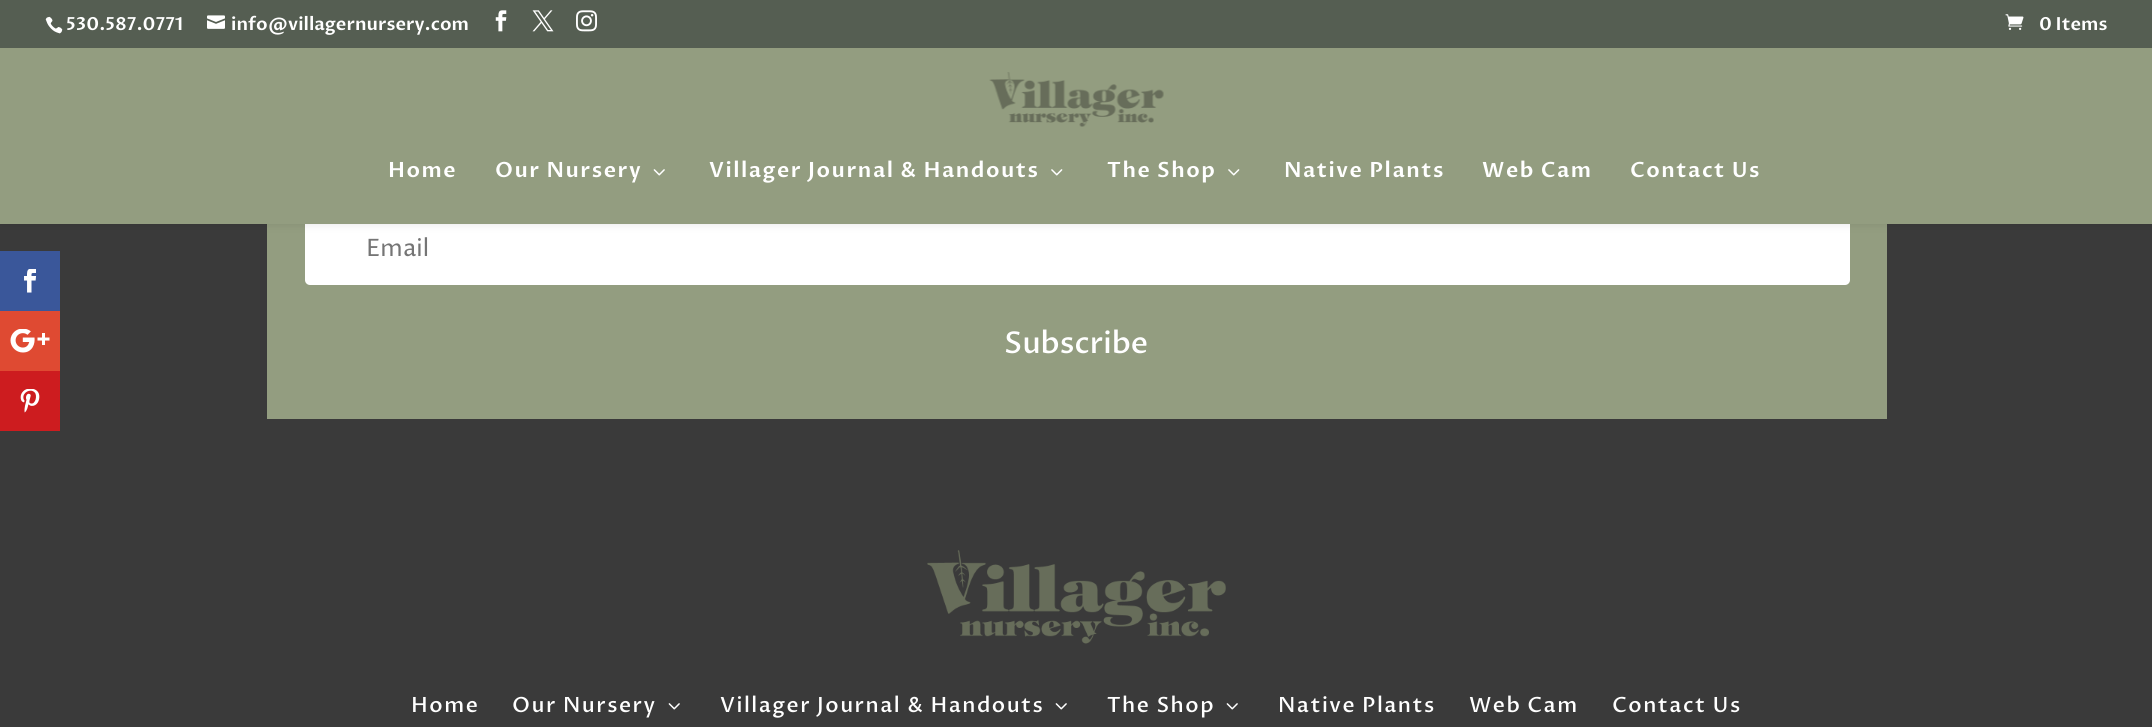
#include <cairo.h>
#include <math.h>
#include <stddef.h>

typedef struct { double x, y; const char *s; } line_t;

static void ink(cairo_t *ctx, unsigned color) {
    cairo_set_source_rgb(ctx, (color >> 16) / 255.0, (color >> 8 & 255) / 255.0, (color & 255) / 255.0);
}

static void write_spaced(cairo_t *ctx, double x, double y, const char *s, double letter, double word) {
    cairo_move_to(ctx, x, y);
    while (*s) {
        char ch[5] = {0};
        int n = 0;
        do ch[n++] = *s++; while ((*s & 0xC0) == 0x80);
        cairo_show_text(ctx, ch);
        cairo_rel_move_to(ctx, letter + word * (*ch == ' '), 0);
    }
}

static void round_path(cairo_t *ctx, double x, double y, double w, double h, double r) {
    cairo_new_sub_path(ctx);
    cairo_arc(ctx, x + w - r, y + h - r, r, 0, M_PI / 2);
    cairo_arc(ctx, x + r, y + h - r, r, M_PI / 2, M_PI);
    cairo_arc(ctx, x + r, y + r, r, M_PI, 1.5 * M_PI);
    cairo_arc(ctx, x + w - r, y + r, r, 1.5 * M_PI, 2 * M_PI);
    cairo_close_path(ctx);
}

static void blur_box(cairo_t *ctx, double x, double y, double w, double h, double r, double blur, double alpha) {
    cairo_push_group_with_content(ctx, CAIRO_CONTENT_ALPHA);
    cairo_set_operator(ctx, CAIRO_OPERATOR_SOURCE);
    for (int i = 15; i >= -15 && fmin(w, h) + blur * i / 3 > 0; i -= 2) {
        double e = blur * i / 6;
        cairo_set_source_rgba(ctx, 0, 0, 0, alpha * erfc((i - 1) / 8.5) / 2);
        round_path(ctx, x - e, y - e, w + 2 * e, h + 2 * e, fmax(0, fmin(r + e + blur * .6, fmin(w, h) / 2 + e)));
        cairo_fill(ctx);
    }
    cairo_pattern_t *soft = cairo_pop_group(ctx);
    cairo_mask(ctx, soft);
    cairo_pattern_destroy(soft);
}

static void paste(cairo_t *ctx, const char *path, double x, double y, double w, double h) {
    cairo_surface_t *image = cairo_image_surface_create_from_png(path);
    cairo_save(ctx);
    cairo_set_source_surface(ctx, image, x, y);
    cairo_rectangle(ctx, x, y, w, h);
    cairo_fill(ctx);
    cairo_restore(ctx);
    cairo_surface_destroy(image);
}

int main(void) {
    cairo_surface_t *surface = cairo_image_surface_create(CAIRO_FORMAT_RGB24, 2152, 727);
    cairo_t *ctx = cairo_create(surface);
    cairo_font_options_t *options = cairo_font_options_create();
    cairo_font_options_set_hint_metrics(options, CAIRO_HINT_METRICS_OFF);
    cairo_font_options_set_hint_style(options, CAIRO_HINT_STYLE_NONE);
    cairo_set_font_options(ctx, options);
    cairo_set_miter_limit(ctx, 4);
    ink(ctx, 0x3A3A3A);
    cairo_paint(ctx);
    ink(ctx, 0x3A579A);
    cairo_rectangle(ctx, 0, 251, 60, 60);
    cairo_fill(ctx);
    paste(ctx, "media/1.png", 24, 269, 13, 24);
    ink(ctx, 0xDF4A32);
    cairo_rectangle(ctx, 0, 311, 60, 60);
    cairo_fill(ctx);
    paste(ctx, "media/2.png", 10, 329, 40, 24);
    ink(ctx, 0xCD1C1F);
    cairo_rectangle(ctx, 0, 371, 60, 60);
    cairo_fill(ctx);
    paste(ctx, "media/3.png", 20, 389, 20, 24);
    ink(ctx, 0x939D80);
    cairo_rectangle(ctx, 267, 224, 1620, 195);
    cairo_fill(ctx);
    ink(ctx, 0xFFFFFF);
    round_path(ctx, 305, 210, 1545, 75, 5);
    cairo_fill(ctx);
    ink(ctx, 0x000000);
    blur_box(ctx, 0, 48, 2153, 176, 0, 5, 0.1);
    ink(ctx, 0x555E52);
    cairo_rectangle(ctx, 0, 0, 2152, 48);
    cairo_fill(ctx);
    paste(ctx, "media/4.png", 45, 16, 18, 18);
    cairo_select_font_face(ctx, "Proza Libre SemiBold", CAIRO_FONT_SLANT_NORMAL, CAIRO_FONT_WEIGHT_NORMAL);
    cairo_set_font_size(ctx, 18);
    ink(ctx, 0xFFFFFF);
    cairo_move_to(ctx, 66, 30);
    cairo_show_text(ctx, "530.587.0771");
    paste(ctx, "media/5.png", 207, 15, 18, 14);
    cairo_move_to(ctx, 231, 30);
    cairo_show_text(ctx, "info@villagernursery.com");
    paste(ctx, "media/6.png", 495, 10, 12, 22);
    paste(ctx, "media/7.png", 532, 10, 22, 22);
    paste(ctx, "media/8.png", 576, 10, 21, 22);
    paste(ctx, "media/9.png", 2005, 14, 19, 16);
    cairo_move_to(ctx, 2039, 30);
    cairo_show_text(ctx, "0 Items");
    ink(ctx, 0x939D80);
    cairo_rectangle(ctx, 0, 48, 2152, 176);
    cairo_fill(ctx);
    paste(ctx, "media/10.png", 989, 72, 175, 55);
    cairo_set_font_size(ctx, 21);
    ink(ctx, 0xFFFFFF);
    write_spaced(ctx, 388, 177, "Home", 1.5, 0);
    write_spaced(ctx, 495, 177, "Our Nursery", 1.5, 0);
    paste(ctx, "media/11.png", 653, 169, 12, 7);
    write_spaced(ctx, 709, 177, "Villager Journal & Handouts", 1.5, 0);
    paste(ctx, "media/12.png", 1051, 169, 12, 7);
    write_spaced(ctx, 1107, 177, "The Shop", 1.5, 0);
    paste(ctx, "media/12.png", 1228, 169, 12, 7);
    {
        static const line_t items[] = {
            {1284, 177, "Native Plants"},
            {1482, 177, "Web Cam"},
            {1630, 177, "Contact Us"},
        };
        for (size_t i = 0; i < sizeof items / sizeof *items; i++) {
            write_spaced(ctx, items[i].x, items[i].y, items[i].s, 1.5, 0);
        }
    }
    cairo_select_font_face(ctx, "Proza Libre", CAIRO_FONT_SLANT_NORMAL, CAIRO_FONT_WEIGHT_NORMAL);
    cairo_set_font_size(ctx, 24);
    ink(ctx, 0x757575);
    cairo_move_to(ctx, 366, 256);
    cairo_show_text(ctx, "Email");
    cairo_select_font_face(ctx, "Proza Libre Medium", CAIRO_FONT_SLANT_NORMAL, CAIRO_FONT_WEIGHT_NORMAL);
    cairo_set_font_size(ctx, 30);
    ink(ctx, 0xFFFFFF);
    cairo_move_to(ctx, 1004, 353);
    cairo_show_text(ctx, "Subscribe");
    paste(ctx, "media/13.png", 927, 550, 299, 94);
    cairo_set_font_size(ctx, 21);
    write_spaced(ctx, 411, 712, "Home", 1.5, 0);
    write_spaced(ctx, 512, 712, "Our Nursery", 1.5, 0);
    paste(ctx, "media/14.png", 668, 703, 12, 7);
    write_spaced(ctx, 720, 712, "Villager Journal & Handouts", 1.5, 0);
    paste(ctx, "media/14.png", 1055, 703, 12, 7);
    write_spaced(ctx, 1107, 712, "The Shop", 1.5, 0);
    paste(ctx, "media/14.png", 1226, 703, 12, 7);
    {
        static const line_t items[] = {
            {1278, 712, "Native Plants"},
            {1469, 712, "Web Cam"},
            {1612, 712, "Contact Us"},
        };
        for (size_t i = 0; i < sizeof items / sizeof *items; i++) {
            write_spaced(ctx, items[i].x, items[i].y, items[i].s, 1.5, 0);
        }
    }
    cairo_surface_write_to_png(surface, "image.png");
    cairo_font_options_destroy(options);
    cairo_destroy(ctx);
    cairo_surface_destroy(surface);
    return 0;
}
